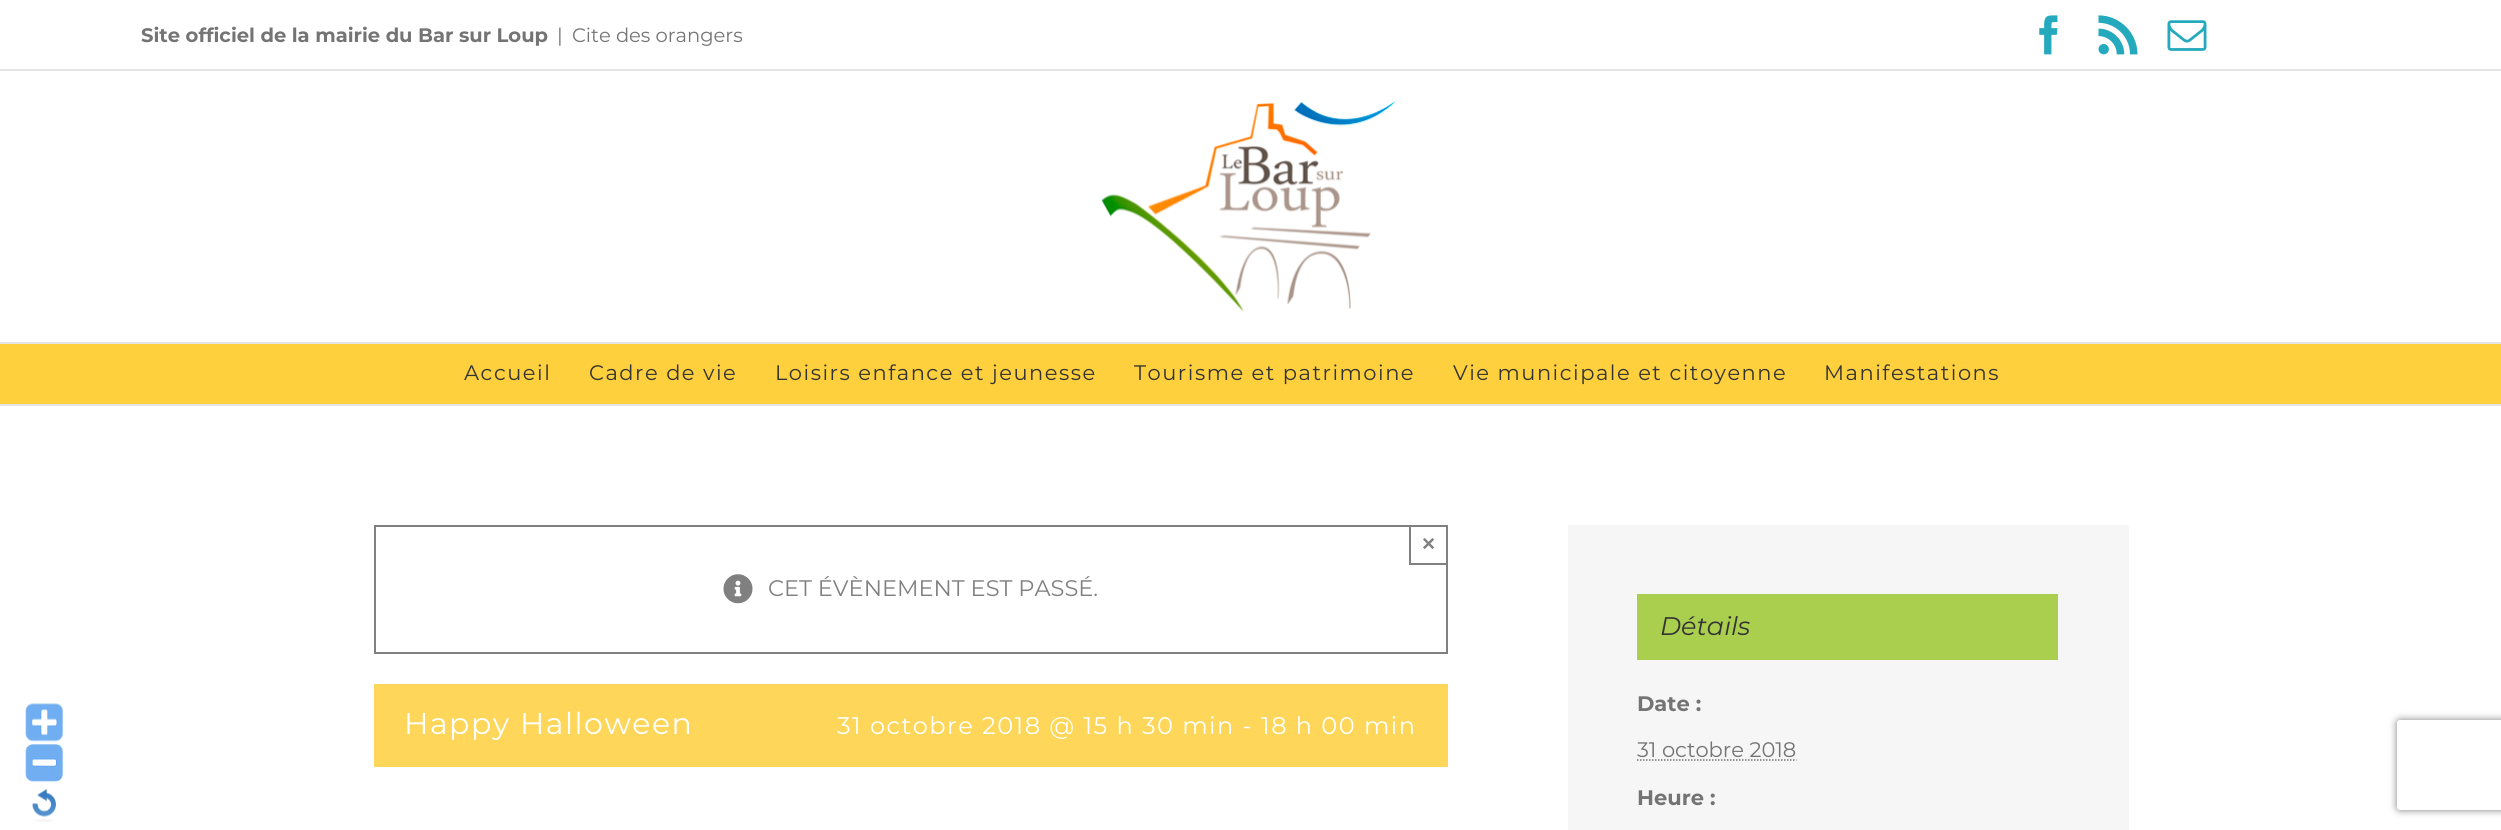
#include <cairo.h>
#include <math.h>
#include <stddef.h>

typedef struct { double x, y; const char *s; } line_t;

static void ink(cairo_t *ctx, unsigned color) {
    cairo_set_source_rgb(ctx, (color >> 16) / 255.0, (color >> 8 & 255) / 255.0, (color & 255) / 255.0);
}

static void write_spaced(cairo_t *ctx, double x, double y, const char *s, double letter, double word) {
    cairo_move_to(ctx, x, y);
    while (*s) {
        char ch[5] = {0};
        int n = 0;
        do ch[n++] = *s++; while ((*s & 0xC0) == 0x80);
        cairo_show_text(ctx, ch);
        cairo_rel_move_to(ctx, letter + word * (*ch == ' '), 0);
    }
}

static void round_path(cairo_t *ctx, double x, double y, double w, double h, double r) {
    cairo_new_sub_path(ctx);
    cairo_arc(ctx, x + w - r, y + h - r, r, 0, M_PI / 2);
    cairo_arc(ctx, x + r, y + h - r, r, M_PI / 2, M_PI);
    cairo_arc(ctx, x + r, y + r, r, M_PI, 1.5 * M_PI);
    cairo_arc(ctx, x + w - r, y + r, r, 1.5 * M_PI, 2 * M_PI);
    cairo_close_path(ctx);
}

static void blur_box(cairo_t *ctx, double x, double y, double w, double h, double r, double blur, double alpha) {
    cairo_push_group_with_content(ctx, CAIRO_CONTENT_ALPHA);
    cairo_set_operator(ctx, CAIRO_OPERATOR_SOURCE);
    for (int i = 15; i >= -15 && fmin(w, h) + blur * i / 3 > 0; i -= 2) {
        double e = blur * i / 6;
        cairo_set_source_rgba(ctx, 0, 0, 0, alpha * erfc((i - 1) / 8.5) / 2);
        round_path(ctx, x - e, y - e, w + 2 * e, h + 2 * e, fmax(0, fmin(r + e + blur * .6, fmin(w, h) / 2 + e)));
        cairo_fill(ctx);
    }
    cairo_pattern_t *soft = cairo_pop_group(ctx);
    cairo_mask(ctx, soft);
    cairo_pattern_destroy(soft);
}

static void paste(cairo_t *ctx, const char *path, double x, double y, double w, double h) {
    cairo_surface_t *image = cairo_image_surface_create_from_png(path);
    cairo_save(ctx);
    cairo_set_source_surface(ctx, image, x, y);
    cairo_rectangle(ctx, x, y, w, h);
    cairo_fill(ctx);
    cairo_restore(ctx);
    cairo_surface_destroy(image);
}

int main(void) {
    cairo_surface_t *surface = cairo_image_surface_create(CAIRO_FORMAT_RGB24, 2501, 830);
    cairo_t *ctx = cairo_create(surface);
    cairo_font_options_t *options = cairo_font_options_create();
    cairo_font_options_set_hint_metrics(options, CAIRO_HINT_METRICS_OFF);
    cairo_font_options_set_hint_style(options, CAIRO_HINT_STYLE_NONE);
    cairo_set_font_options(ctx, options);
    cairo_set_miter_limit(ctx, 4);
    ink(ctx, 0xFFFFFF);
    cairo_paint(ctx);
    paste(ctx, "media/1.png", 25, 703, 38, 39);
    paste(ctx, "media/2.png", 25, 744, 38, 38);
    paste(ctx, "media/3.png", 32, 788, 24, 34);
    ink(ctx, 0xE5E5E5);
    cairo_rectangle(ctx, 0, 69, 2501, 2);
    cairo_fill(ctx);
    cairo_select_font_face(ctx, "Montserrat", CAIRO_FONT_SLANT_NORMAL, CAIRO_FONT_WEIGHT_BOLD);
    cairo_set_font_size(ctx, 19.5);
    ink(ctx, 0x747474);
    cairo_move_to(ctx, 141, 42);
    cairo_show_text(ctx, "Site officiel de la mairie du Bar sur Loup");
    cairo_select_font_face(ctx, "Montserrat", CAIRO_FONT_SLANT_NORMAL, CAIRO_FONT_WEIGHT_NORMAL);
    cairo_move_to(ctx, 557, 42);
    cairo_show_text(ctx, "|");
    cairo_move_to(ctx, 572, 42);
    cairo_show_text(ctx, "Cite des orangers");
    paste(ctx, "media/4.png", 2039, 15, 19, 40);
    paste(ctx, "media/5.png", 2098, 15, 40, 40);
    paste(ctx, "media/6.png", 2167, 20, 40, 31);
    ink(ctx, 0xE5E5E5);
    cairo_rectangle(ctx, 0, 342, 2501, 2);
    cairo_fill(ctx);
    paste(ctx, "media/7.png", 1101, 100, 295, 212);
    ink(ctx, 0xFED03D);
    cairo_rectangle(ctx, 0, 344, 2501, 60);
    cairo_fill(ctx);
    ink(ctx, 0xE5E5E5);
    cairo_rectangle(ctx, 0, 404, 2501, 2);
    cairo_fill(ctx);
    cairo_set_font_size(ctx, 21);
    ink(ctx, 0x333333);
    {
        static const line_t items[] = {
            {464, 380, "Accueil"},
            {589, 380, "Cadre de vie"},
            {775, 380, "Loisirs enfance et jeunesse"},
            {1134, 380, "Tourisme et patrimoine"},
            {1453, 380, "Vie municipale et citoyenne"},
            {1824, 380, "Manifestations"},
        };
        for (size_t i = 0; i < sizeof items / sizeof *items; i++) {
            write_spaced(ctx, items[i].x, items[i].y, items[i].s, 1.5, 0);
        }
    }
    cairo_rectangle(ctx, 375, 526, 1072, 127);
    ink(ctx, 0x808080);
    cairo_stroke(ctx);
    cairo_rectangle(ctx, 1409, 563, 39, 2);
    cairo_fill(ctx);
    cairo_rectangle(ctx, 1409, 525, 2, 39);
    cairo_fill(ctx);
    cairo_select_font_face(ctx, "Liberation Sans", CAIRO_FONT_SLANT_NORMAL, CAIRO_FONT_WEIGHT_BOLD);
    cairo_set_font_size(ctx, 22.5);
    cairo_move_to(ctx, 1422, 551);
    cairo_show_text(ctx, "×");
    paste(ctx, "media/8.png", 723, 574, 30, 30);
    cairo_select_font_face(ctx, "Montserrat", CAIRO_FONT_SLANT_NORMAL, CAIRO_FONT_WEIGHT_NORMAL);
    cairo_move_to(ctx, 768, 596);
    cairo_show_text(ctx, "CET ÉVÈNEMENT EST PASSÉ.");
    ink(ctx, 0xFED75A);
    cairo_rectangle(ctx, 374, 684, 1074, 83);
    cairo_fill(ctx);
    cairo_set_font_size(ctx, 30);
    ink(ctx, 0xFFFFFF);
    write_spaced(ctx, 404, 734, "Happy Halloween", 1.5, 0);
    cairo_set_font_size(ctx, 24);
    write_spaced(ctx, 837, 734, "31 octobre 2018 @ 15 h 30 min - 18 h 00 min", 1.5, 0);
    ink(ctx, 0xF6F6F6);
    cairo_rectangle(ctx, 1568, 525, 561, 305);
    cairo_fill(ctx);
    ink(ctx, 0xAACE4E);
    cairo_rectangle(ctx, 1637, 594, 421, 66);
    cairo_fill(ctx);
    cairo_select_font_face(ctx, "Montserrat", CAIRO_FONT_SLANT_ITALIC, CAIRO_FONT_WEIGHT_NORMAL);
    cairo_set_font_size(ctx, 25.5);
    ink(ctx, 0x333333);
    cairo_move_to(ctx, 1660, 635);
    cairo_show_text(ctx, "Détails");
    cairo_select_font_face(ctx, "Montserrat", CAIRO_FONT_SLANT_NORMAL, CAIRO_FONT_WEIGHT_BOLD);
    cairo_set_font_size(ctx, 21);
    ink(ctx, 0x747474);
    cairo_move_to(ctx, 1637, 711);
    cairo_show_text(ctx, "Date :");
    cairo_select_font_face(ctx, "Montserrat", CAIRO_FONT_SLANT_NORMAL, CAIRO_FONT_WEIGHT_NORMAL);
    cairo_move_to(ctx, 1637, 757);
    cairo_show_text(ctx, "31 octobre 2018");
    cairo_new_path(ctx);
    cairo_move_to(ctx, 1637, 760);
    cairo_line_to(ctx, 1796.5, 760);
    cairo_set_line_width(ctx, 1.5);
    cairo_set_dash(ctx, (double[]){1.5, 1.5}, 2, 0);
    cairo_stroke(ctx);
    cairo_select_font_face(ctx, "Montserrat", CAIRO_FONT_SLANT_NORMAL, CAIRO_FONT_WEIGHT_BOLD);
    cairo_move_to(ctx, 1637, 805);
    cairo_show_text(ctx, "Heure :");
    cairo_save(ctx);
    cairo_set_fill_rule(ctx, CAIRO_FILL_RULE_EVEN_ODD);
    cairo_new_path(ctx);
    cairo_move_to(ctx, 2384, 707);
    cairo_line_to(ctx, 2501, 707);
    cairo_line_to(ctx, 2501, 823);
    cairo_line_to(ctx, 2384, 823);
    cairo_close_path(ctx);
    cairo_move_to(ctx, 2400, 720);
    cairo_line_to(ctx, 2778, 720);
    cairo_curve_to(ctx, 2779.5, 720, 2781, 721.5, 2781, 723);
    cairo_line_to(ctx, 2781, 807);
    cairo_curve_to(ctx, 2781, 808.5, 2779.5, 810, 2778, 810);
    cairo_line_to(ctx, 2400, 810);
    cairo_curve_to(ctx, 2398.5, 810, 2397, 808.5, 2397, 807);
    cairo_line_to(ctx, 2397, 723);
    cairo_curve_to(ctx, 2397, 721.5, 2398.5, 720, 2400, 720);
    cairo_close_path(ctx);
    cairo_clip(ctx);
    ink(ctx, 0x808080);
    blur_box(ctx, 2397, 720, 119, 90, 3, 4, 1);
    cairo_restore(ctx);
    cairo_surface_write_to_png(surface, "image.png");
    cairo_font_options_destroy(options);
    cairo_destroy(ctx);
    cairo_surface_destroy(surface);
    return 0;
}
